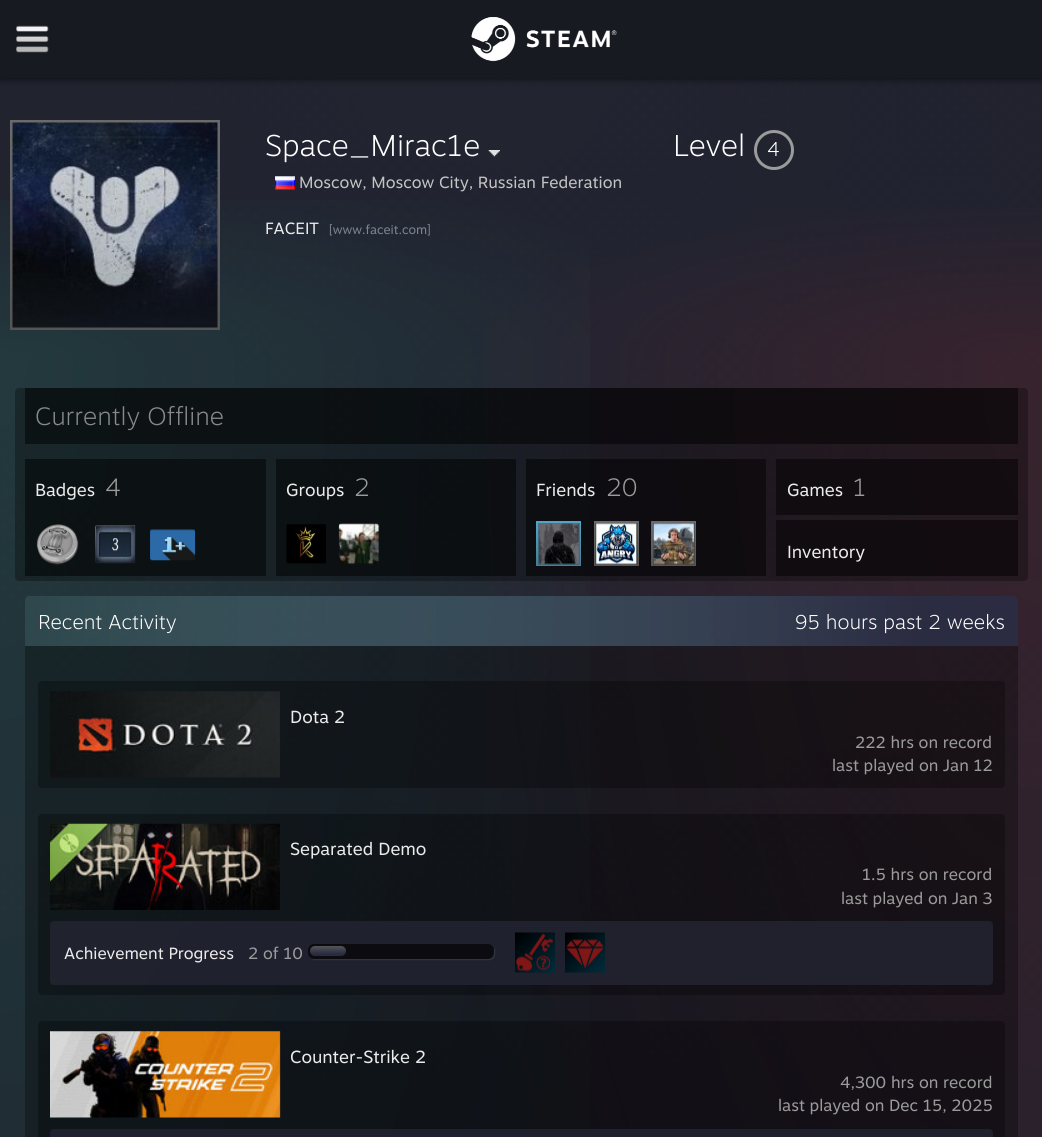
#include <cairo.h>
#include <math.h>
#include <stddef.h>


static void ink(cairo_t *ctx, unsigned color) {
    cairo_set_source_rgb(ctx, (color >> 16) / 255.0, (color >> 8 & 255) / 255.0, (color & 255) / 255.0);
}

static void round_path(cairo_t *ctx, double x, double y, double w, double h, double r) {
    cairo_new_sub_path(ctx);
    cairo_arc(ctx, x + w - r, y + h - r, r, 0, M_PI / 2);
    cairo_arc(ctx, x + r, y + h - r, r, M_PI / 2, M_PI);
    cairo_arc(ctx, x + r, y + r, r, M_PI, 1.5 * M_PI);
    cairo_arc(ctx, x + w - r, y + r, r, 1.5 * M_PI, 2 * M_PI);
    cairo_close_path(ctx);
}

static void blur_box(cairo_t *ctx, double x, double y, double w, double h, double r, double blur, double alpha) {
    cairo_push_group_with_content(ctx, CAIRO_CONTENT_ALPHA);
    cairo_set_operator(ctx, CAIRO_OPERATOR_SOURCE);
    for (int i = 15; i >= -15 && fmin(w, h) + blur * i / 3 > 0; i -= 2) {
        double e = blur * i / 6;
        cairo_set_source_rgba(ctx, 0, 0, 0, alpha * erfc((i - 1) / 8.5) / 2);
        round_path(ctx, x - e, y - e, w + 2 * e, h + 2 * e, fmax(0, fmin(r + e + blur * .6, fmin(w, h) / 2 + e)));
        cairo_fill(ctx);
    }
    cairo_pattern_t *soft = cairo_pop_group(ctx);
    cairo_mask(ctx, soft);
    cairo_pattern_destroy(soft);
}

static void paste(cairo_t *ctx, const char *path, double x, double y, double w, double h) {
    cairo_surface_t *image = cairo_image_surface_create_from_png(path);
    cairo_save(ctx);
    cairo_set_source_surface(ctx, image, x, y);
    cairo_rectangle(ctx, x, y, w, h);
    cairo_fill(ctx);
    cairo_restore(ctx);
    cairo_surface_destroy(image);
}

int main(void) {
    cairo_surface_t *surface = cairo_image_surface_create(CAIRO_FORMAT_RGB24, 1042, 1137);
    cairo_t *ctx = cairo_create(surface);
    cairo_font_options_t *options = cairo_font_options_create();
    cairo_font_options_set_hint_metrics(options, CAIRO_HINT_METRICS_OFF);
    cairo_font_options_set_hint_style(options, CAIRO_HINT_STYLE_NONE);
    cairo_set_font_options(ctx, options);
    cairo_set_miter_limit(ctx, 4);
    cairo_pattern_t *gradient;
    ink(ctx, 0x000000);
    cairo_paint(ctx);
    paste(ctx, "media/3.png", 0, 78, 1042, 1044);
    cairo_set_source_rgba(ctx, 0.133, 0.137, 0.188, 0.93);
    cairo_rectangle(ctx, 0, 78, 1042, 280);
    cairo_fill(ctx);
    ink(ctx, 0x000000);
    blur_box(ctx, 0, 0, 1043, 78, 0, 4.5, 0.75);
    ink(ctx, 0x171A21);
    cairo_rectangle(ctx, 0, 0, 1042, 78);
    cairo_fill(ctx);
    paste(ctx, "media/1.png", 16, 25, 33, 28);
    paste(ctx, "media/2.png", 471, 17, 146, 45);
    gradient = cairo_pattern_create_radial(0, 0, 0, 0, 0, 1);
    cairo_pattern_set_matrix(gradient, &(cairo_matrix_t){1.0 / 1474, 0, 0, 1.0 / 396, -1.0 * 0 / 1474, -1.0 * 358 / 396});
    cairo_pattern_add_color_stop_rgba(gradient, 0, 0.196, 1, 0.757, 0.1);
    cairo_pattern_add_color_stop_rgba(gradient, 0.51, 0.196, 1, 0.757, 0);
    cairo_set_source(ctx, gradient);
    cairo_pattern_destroy(gradient);
    cairo_rectangle(ctx, 0, 200, 590, 158);
    cairo_fill(ctx);
    gradient = cairo_pattern_create_radial(0, 0, 0, 0, 0, 1);
    cairo_pattern_set_matrix(gradient, &(cairo_matrix_t){1.0 / 1043, 0, 0, 1.0 / 280, -1.0 * 1043 / 1043, -1.0 * 358 / 280});
    cairo_pattern_add_color_stop_rgba(gradient, 0, 0.427, 0.149, 0.173, 0.3);
    cairo_pattern_add_color_stop_rgba(gradient, 0.6, 0.427, 0.149, 0.173, 0);
    cairo_set_source(ctx, gradient);
    cairo_pattern_destroy(gradient);
    cairo_rectangle(ctx, 485, 208, 557, 150);
    cairo_fill(ctx);
    gradient = cairo_pattern_create_linear(115, 120, 115, 330);
    cairo_pattern_add_color_stop_rgba(gradient, 0.05, 0.416, 0.416, 0.416, 1);
    cairo_pattern_add_color_stop_rgba(gradient, 0.95, 0.333, 0.333, 0.333, 1);
    cairo_set_source(ctx, gradient);
    cairo_pattern_destroy(gradient);
    cairo_rectangle(ctx, 10, 120, 210, 210);
    cairo_fill(ctx);
    paste(ctx, "media/4.png", 12, 122, 206, 206);
    cairo_select_font_face(ctx, "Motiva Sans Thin", CAIRO_FONT_SLANT_NORMAL, CAIRO_FONT_WEIGHT_NORMAL);
    cairo_set_font_size(ctx, 30);
    ink(ctx, 0xFFFFFF);
    cairo_move_to(ctx, 265, 156);
    cairo_show_text(ctx, "Space_Mirac1e");
    paste(ctx, "media/5.png", 488, 150, 12, 7);
    paste(ctx, "media/6.png", 275, 176, 20, 14);
    cairo_select_font_face(ctx, "Motiva Sans", CAIRO_FONT_SLANT_NORMAL, CAIRO_FONT_WEIGHT_NORMAL);
    cairo_set_font_size(ctx, 16.25);
    ink(ctx, 0xC4C4C4);
    cairo_move_to(ctx, 299, 188);
    cairo_show_text(ctx, "Moscow, Moscow City, Russian Federation");
    ink(ctx, 0xEBEBEB);
    cairo_move_to(ctx, 265, 234);
    cairo_show_text(ctx, "FACEIT");
    cairo_set_font_size(ctx, 12.5);
    ink(ctx, 0x7E8391);
    cairo_move_to(ctx, 329, 234);
    cairo_show_text(ctx, "[www.faceit.com]");
    cairo_select_font_face(ctx, "Motiva Sans Thin", CAIRO_FONT_SLANT_NORMAL, CAIRO_FONT_WEIGHT_NORMAL);
    cairo_set_font_size(ctx, 30);
    ink(ctx, 0xFFFFFF);
    cairo_move_to(ctx, 673, 156);
    cairo_show_text(ctx, "Level");
    cairo_new_path(ctx);
    cairo_arc(ctx, 774, 150, 18.5, 0, 2 * M_PI);
    ink(ctx, 0x9B9B9B);
    cairo_set_line_width(ctx, 3);
    cairo_stroke(ctx);
    cairo_set_font_size(ctx, 20);
    ink(ctx, 0xFFFFFF);
    cairo_move_to(ctx, 767, 156);
    cairo_show_text(ctx, "4");
    cairo_set_source_rgba(ctx, 0.133, 0.137, 0.188, 0.93);
    cairo_rectangle(ctx, 0, 358, 1042, 779);
    cairo_fill(ctx);
    gradient = cairo_pattern_create_radial(0, 0, 0, 0, 0, 1);
    cairo_pattern_set_matrix(gradient, &(cairo_matrix_t){1.0 / 1474, 0, 0, 1.0 / 3619, -1.0 * 0 / 1474, -1.0 * 358 / 3619});
    cairo_pattern_add_color_stop_rgba(gradient, 0, 0.196, 1, 0.757, 0.1);
    cairo_pattern_add_color_stop_rgba(gradient, 0.51, 0.196, 1, 0.757, 0);
    cairo_set_source(ctx, gradient);
    cairo_pattern_destroy(gradient);
    cairo_rectangle(ctx, 0, 358, 590, 779);
    cairo_fill(ctx);
    gradient = cairo_pattern_create_radial(0, 0, 0, 0, 0, 1);
    cairo_pattern_set_matrix(gradient, &(cairo_matrix_t){1.0 / 1043, 0, 0, 1.0 / 2559, -1.0 * 1043 / 1043, -1.0 * 358 / 2559});
    cairo_pattern_add_color_stop_rgba(gradient, 0, 0.427, 0.149, 0.173, 0.3);
    cairo_pattern_add_color_stop_rgba(gradient, 0.6, 0.427, 0.149, 0.173, 0);
    cairo_set_source(ctx, gradient);
    cairo_pattern_destroy(gradient);
    cairo_rectangle(ctx, 485, 358, 557, 779);
    cairo_fill(ctx);
    cairo_set_source_rgba(ctx, 0, 0, 0, 0.3);
    round_path(ctx, 15, 388, 1013, 193, 4);
    cairo_fill(ctx);
    cairo_set_source_rgba(ctx, 0, 0, 0, 0.5);
    cairo_rectangle(ctx, 25, 388, 993, 56);
    cairo_fill(ctx);
    cairo_set_font_size(ctx, 25);
    ink(ctx, 0x898989);
    cairo_move_to(ctx, 35, 425);
    cairo_show_text(ctx, "Currently Offline");
    cairo_set_source_rgba(ctx, 0, 0, 0, 0.5);
    cairo_rectangle(ctx, 25, 459, 241, 117);
    cairo_fill(ctx);
    cairo_select_font_face(ctx, "Motiva Sans", CAIRO_FONT_SLANT_NORMAL, CAIRO_FONT_WEIGHT_NORMAL);
    cairo_set_font_size(ctx, 17.5);
    ink(ctx, 0xEBEBEB);
    cairo_move_to(ctx, 35, 496);
    cairo_show_text(ctx, "Badges");
    cairo_select_font_face(ctx, "Motiva Sans Thin", CAIRO_FONT_SLANT_NORMAL, CAIRO_FONT_WEIGHT_NORMAL);
    cairo_set_font_size(ctx, 25);
    ink(ctx, 0x9B9B9B);
    cairo_move_to(ctx, 105, 496);
    cairo_show_text(ctx, "4");
    paste(ctx, "media/7.png", 36, 524, 43, 41);
    paste(ctx, "media/8.png", 95, 525, 41, 39);
    paste(ctx, "media/9.png", 150, 529, 46, 32);
    cairo_set_source_rgba(ctx, 0, 0, 0, 0.5);
    cairo_rectangle(ctx, 276, 459, 240, 117);
    cairo_fill(ctx);
    cairo_select_font_face(ctx, "Motiva Sans", CAIRO_FONT_SLANT_NORMAL, CAIRO_FONT_WEIGHT_NORMAL);
    cairo_set_font_size(ctx, 17.5);
    ink(ctx, 0xEBEBEB);
    cairo_move_to(ctx, 286, 496);
    cairo_show_text(ctx, "Groups");
    cairo_select_font_face(ctx, "Motiva Sans Thin", CAIRO_FONT_SLANT_NORMAL, CAIRO_FONT_WEIGHT_NORMAL);
    cairo_set_font_size(ctx, 25);
    ink(ctx, 0x9B9B9B);
    cairo_move_to(ctx, 354, 496);
    cairo_show_text(ctx, "2");
    paste(ctx, "media/10.png", 286, 524, 40, 40);
    paste(ctx, "media/11.png", 338, 523, 42, 42);
    cairo_set_source_rgba(ctx, 0, 0, 0, 0.5);
    cairo_rectangle(ctx, 526, 459, 240, 117);
    cairo_fill(ctx);
    cairo_select_font_face(ctx, "Motiva Sans", CAIRO_FONT_SLANT_NORMAL, CAIRO_FONT_WEIGHT_NORMAL);
    cairo_set_font_size(ctx, 17.5);
    ink(ctx, 0xEBEBEB);
    cairo_move_to(ctx, 536, 496);
    cairo_show_text(ctx, "Friends");
    cairo_select_font_face(ctx, "Motiva Sans Thin", CAIRO_FONT_SLANT_NORMAL, CAIRO_FONT_WEIGHT_NORMAL);
    cairo_set_font_size(ctx, 25);
    ink(ctx, 0x9B9B9B);
    cairo_move_to(ctx, 606, 496);
    cairo_show_text(ctx, "20");
    gradient = cairo_pattern_create_linear(559, 521, 559, 566);
    cairo_pattern_add_color_stop_rgba(gradient, 0.05, 0.325, 0.643, 0.769, 1);
    cairo_pattern_add_color_stop_rgba(gradient, 0.95, 0.271, 0.502, 0.592, 1);
    cairo_set_source(ctx, gradient);
    cairo_pattern_destroy(gradient);
    cairo_rectangle(ctx, 536, 521, 45, 45);
    cairo_fill(ctx);
    gradient = cairo_pattern_create_linear(559, 523, 559, 565);
    cairo_pattern_add_color_stop_rgba(gradient, 0.05, 0.255, 0.467, 0.561, 1);
    cairo_pattern_add_color_stop_rgba(gradient, 0.95, 0.239, 0.412, 0.482, 1);
    cairo_set_source(ctx, gradient);
    cairo_pattern_destroy(gradient);
    cairo_rectangle(ctx, 538, 523, 42, 42);
    cairo_fill(ctx);
    paste(ctx, "media/12.png", 538, 523, 41, 42);
    gradient = cairo_pattern_create_linear(616, 521, 616, 566);
    cairo_pattern_add_color_stop_rgba(gradient, 0.05, 0.416, 0.416, 0.416, 1);
    cairo_pattern_add_color_stop_rgba(gradient, 0.95, 0.333, 0.333, 0.333, 1);
    cairo_set_source(ctx, gradient);
    cairo_pattern_destroy(gradient);
    cairo_rectangle(ctx, 594, 521, 45, 45);
    cairo_fill(ctx);
    gradient = cairo_pattern_create_linear(616, 523, 616, 565);
    cairo_pattern_add_color_stop_rgba(gradient, 0.05, 0.318, 0.318, 0.318, 1);
    cairo_pattern_add_color_stop_rgba(gradient, 0.95, 0.278, 0.278, 0.278, 1);
    cairo_set_source(ctx, gradient);
    cairo_pattern_destroy(gradient);
    cairo_rectangle(ctx, 595, 523, 43, 42);
    cairo_fill(ctx);
    paste(ctx, "media/13.png", 596, 523, 41, 42);
    gradient = cairo_pattern_create_linear(674, 521, 674, 566);
    cairo_pattern_add_color_stop_rgba(gradient, 0.05, 0.416, 0.416, 0.416, 1);
    cairo_pattern_add_color_stop_rgba(gradient, 0.95, 0.333, 0.333, 0.333, 1);
    cairo_set_source(ctx, gradient);
    cairo_pattern_destroy(gradient);
    cairo_rectangle(ctx, 651, 521, 45, 45);
    cairo_fill(ctx);
    gradient = cairo_pattern_create_linear(674, 523, 674, 565);
    cairo_pattern_add_color_stop_rgba(gradient, 0.05, 0.318, 0.318, 0.318, 1);
    cairo_pattern_add_color_stop_rgba(gradient, 0.95, 0.278, 0.278, 0.278, 1);
    cairo_set_source(ctx, gradient);
    cairo_pattern_destroy(gradient);
    cairo_rectangle(ctx, 653, 523, 42, 42);
    cairo_fill(ctx);
    paste(ctx, "media/14.png", 653, 523, 41, 42);
    cairo_set_source_rgba(ctx, 0, 0, 0, 0.5);
    cairo_rectangle(ctx, 776, 459, 242, 56);
    cairo_fill(ctx);
    cairo_select_font_face(ctx, "Motiva Sans", CAIRO_FONT_SLANT_NORMAL, CAIRO_FONT_WEIGHT_NORMAL);
    cairo_set_font_size(ctx, 17.5);
    ink(ctx, 0xEBEBEB);
    cairo_move_to(ctx, 787, 496);
    cairo_show_text(ctx, "Games");
    cairo_select_font_face(ctx, "Motiva Sans Thin", CAIRO_FONT_SLANT_NORMAL, CAIRO_FONT_WEIGHT_NORMAL);
    cairo_set_font_size(ctx, 25);
    ink(ctx, 0x9B9B9B);
    cairo_move_to(ctx, 853, 496);
    cairo_show_text(ctx, "1");
    cairo_set_source_rgba(ctx, 0, 0, 0, 0.5);
    cairo_rectangle(ctx, 776, 520, 242, 56);
    cairo_fill(ctx);
    cairo_select_font_face(ctx, "Motiva Sans", CAIRO_FONT_SLANT_NORMAL, CAIRO_FONT_WEIGHT_NORMAL);
    cairo_set_font_size(ctx, 17.5);
    ink(ctx, 0xEBEBEB);
    cairo_move_to(ctx, 787, 558);
    cairo_show_text(ctx, "Inventory");
    cairo_set_source_rgba(ctx, 0, 0, 0, 0.3);
    round_path(ctx, 25, 596, 993, 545, 4);
    cairo_fill(ctx);
    gradient = cairo_pattern_create_linear(25, 621, 1018, 621);
    cairo_pattern_add_color_stop_rgba(gradient, 0, 0.451, 0.678, 0.722, 0.25);
    cairo_pattern_add_color_stop_rgba(gradient, 0.9, 0.169, 0.176, 0.267, 0.93);
    cairo_set_source(ctx, gradient);
    cairo_pattern_destroy(gradient);
    cairo_new_path(ctx);
    cairo_move_to(ctx, 29, 596);
    cairo_line_to(ctx, 1014, 596);
    cairo_curve_to(ctx, 1016, 596, 1018, 598, 1018, 600);
    cairo_line_to(ctx, 1018, 646);
    cairo_line_to(ctx, 25, 646);
    cairo_line_to(ctx, 25, 600);
    cairo_curve_to(ctx, 25, 598, 27, 596, 29, 596);
    cairo_close_path(ctx);
    cairo_fill(ctx);
    cairo_select_font_face(ctx, "Motiva Sans Thin", CAIRO_FONT_SLANT_NORMAL, CAIRO_FONT_WEIGHT_NORMAL);
    cairo_set_font_size(ctx, 20);
    ink(ctx, 0xFFFFFF);
    cairo_move_to(ctx, 38, 629);
    cairo_show_text(ctx, "Recent Activity");
    cairo_move_to(ctx, 795, 629);
    cairo_show_text(ctx, "95 hours past 2 weeks");
    cairo_set_source_rgba(ctx, 0, 0, 0, 0.3);
    round_path(ctx, 38, 681, 967, 107, 4);
    cairo_fill(ctx);
    paste(ctx, "media/15.png", 50, 691, 230, 87);
    cairo_select_font_face(ctx, "Motiva Sans", CAIRO_FONT_SLANT_NORMAL, CAIRO_FONT_WEIGHT_NORMAL);
    cairo_set_font_size(ctx, 17.5);
    ink(ctx, 0xEBEBEB);
    cairo_move_to(ctx, 290, 723);
    cairo_show_text(ctx, "Dota 2");
    cairo_set_font_size(ctx, 16.25);
    ink(ctx, 0x9B9B9B);
    cairo_move_to(ctx, 855, 748);
    cairo_show_text(ctx, "222 hrs on record");
    cairo_move_to(ctx, 832, 771);
    cairo_show_text(ctx, "last played on Jan 12");
    cairo_set_source_rgba(ctx, 0, 0, 0, 0.3);
    round_path(ctx, 38, 814, 967, 181, 4);
    cairo_fill(ctx);
    paste(ctx, "media/16.png", 50, 823, 230, 87);
    cairo_set_font_size(ctx, 17.5);
    ink(ctx, 0xEBEBEB);
    cairo_move_to(ctx, 290, 855);
    cairo_show_text(ctx, "Separated Demo");
    cairo_set_font_size(ctx, 16.25);
    ink(ctx, 0x9B9B9B);
    cairo_move_to(ctx, 862, 880);
    cairo_show_text(ctx, "1.5 hrs on record");
    cairo_move_to(ctx, 841, 904);
    cairo_show_text(ctx, "last played on Jan 3");
    cairo_set_source_rgba(ctx, 0.133, 0.137, 0.188, 0.93);
    round_path(ctx, 50, 921, 943, 64, 4);
    cairo_fill(ctx);
    ink(ctx, 0xEBEBEB);
    cairo_move_to(ctx, 64, 959);
    cairo_show_text(ctx, "Achievement Progress");
    ink(ctx, 0x9B9B9B);
    cairo_move_to(ctx, 248, 959);
    cairo_show_text(ctx, "2 of 10");
    cairo_save(ctx);
    cairo_set_fill_rule(ctx, CAIRO_FILL_RULE_EVEN_ODD);
    cairo_new_path(ctx);
    cairo_move_to(ctx, 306, 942);
    cairo_line_to(ctx, 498, 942);
    cairo_line_to(ctx, 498, 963);
    cairo_line_to(ctx, 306, 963);
    cairo_close_path(ctx);
    cairo_move_to(ctx, 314, 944);
    cairo_line_to(ctx, 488, 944);
    cairo_curve_to(ctx, 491.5, 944, 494, 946.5, 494, 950);
    cairo_line_to(ctx, 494, 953);
    cairo_curve_to(ctx, 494, 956.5, 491.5, 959, 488, 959);
    cairo_line_to(ctx, 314, 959);
    cairo_curve_to(ctx, 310.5, 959, 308, 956.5, 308, 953);
    cairo_line_to(ctx, 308, 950);
    cairo_curve_to(ctx, 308, 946.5, 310.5, 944, 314, 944);
    cairo_close_path(ctx);
    cairo_clip(ctx);
    ink(ctx, 0xFFFFFF);
    blur_box(ctx, 309, 945, 186, 15, 6, 0.5, 0.1);
    cairo_restore(ctx);
    cairo_set_source_rgba(ctx, 0, 0, 0, 0.3);
    round_path(ctx, 308, 944, 186, 15, 6);
    cairo_fill(ctx);
    cairo_set_source_rgba(ctx, 0, 0, 0, 0.5);
    cairo_new_path(ctx);
    cairo_move_to(ctx, 314, 944);
    cairo_line_to(ctx, 488, 944);
    cairo_curve_to(ctx, 491, 944, 494, 947, 494, 950);
    cairo_curve_to(ctx, 494, 954, 493, 959, 488, 959);
    cairo_line_to(ctx, 314, 959);
    cairo_line_to(ctx, 311, 958);
    cairo_curve_to(ctx, 306, 955, 307, 944, 314, 944);
    cairo_close_path(ctx);
    cairo_fill(ctx);
    gradient = cairo_pattern_create_linear(328, 946, 328, 956);
    cairo_pattern_add_color_stop_rgba(gradient, 0, 0.333, 0.333, 0.345, 1);
    cairo_pattern_add_color_stop_rgba(gradient, 0.8, 0.161, 0.169, 0.251, 1);
    cairo_set_source(ctx, gradient);
    cairo_pattern_destroy(gradient);
    round_path(ctx, 310, 946, 36, 10, 5);
    cairo_fill(ctx);
    paste(ctx, "media/17.png", 515, 932, 40, 41);
    paste(ctx, "media/18.png", 565, 932, 40, 41);
    cairo_set_source_rgba(ctx, 0, 0, 0, 0.3);
    round_path(ctx, 38, 1021, 967, 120, 4);
    cairo_fill(ctx);
    paste(ctx, "media/19.png", 50, 1031, 231, 87);
    cairo_set_font_size(ctx, 17.5);
    ink(ctx, 0xEBEBEB);
    cairo_move_to(ctx, 290, 1063);
    cairo_show_text(ctx, "Counter-Strike 2");
    cairo_set_font_size(ctx, 16.25);
    ink(ctx, 0x9B9B9B);
    cairo_move_to(ctx, 840, 1088);
    cairo_show_text(ctx, "4,300 hrs on record");
    cairo_move_to(ctx, 778, 1111);
    cairo_show_text(ctx, "last played on Dec 15, 2025");
    cairo_set_source_rgba(ctx, 0.133, 0.137, 0.188, 0.93);
    round_path(ctx, 50, 1129, 943, 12, 4);
    cairo_fill(ctx);
    cairo_surface_write_to_png(surface, "image.png");
    cairo_font_options_destroy(options);
    cairo_destroy(ctx);
    cairo_surface_destroy(surface);
    return 0;
}
